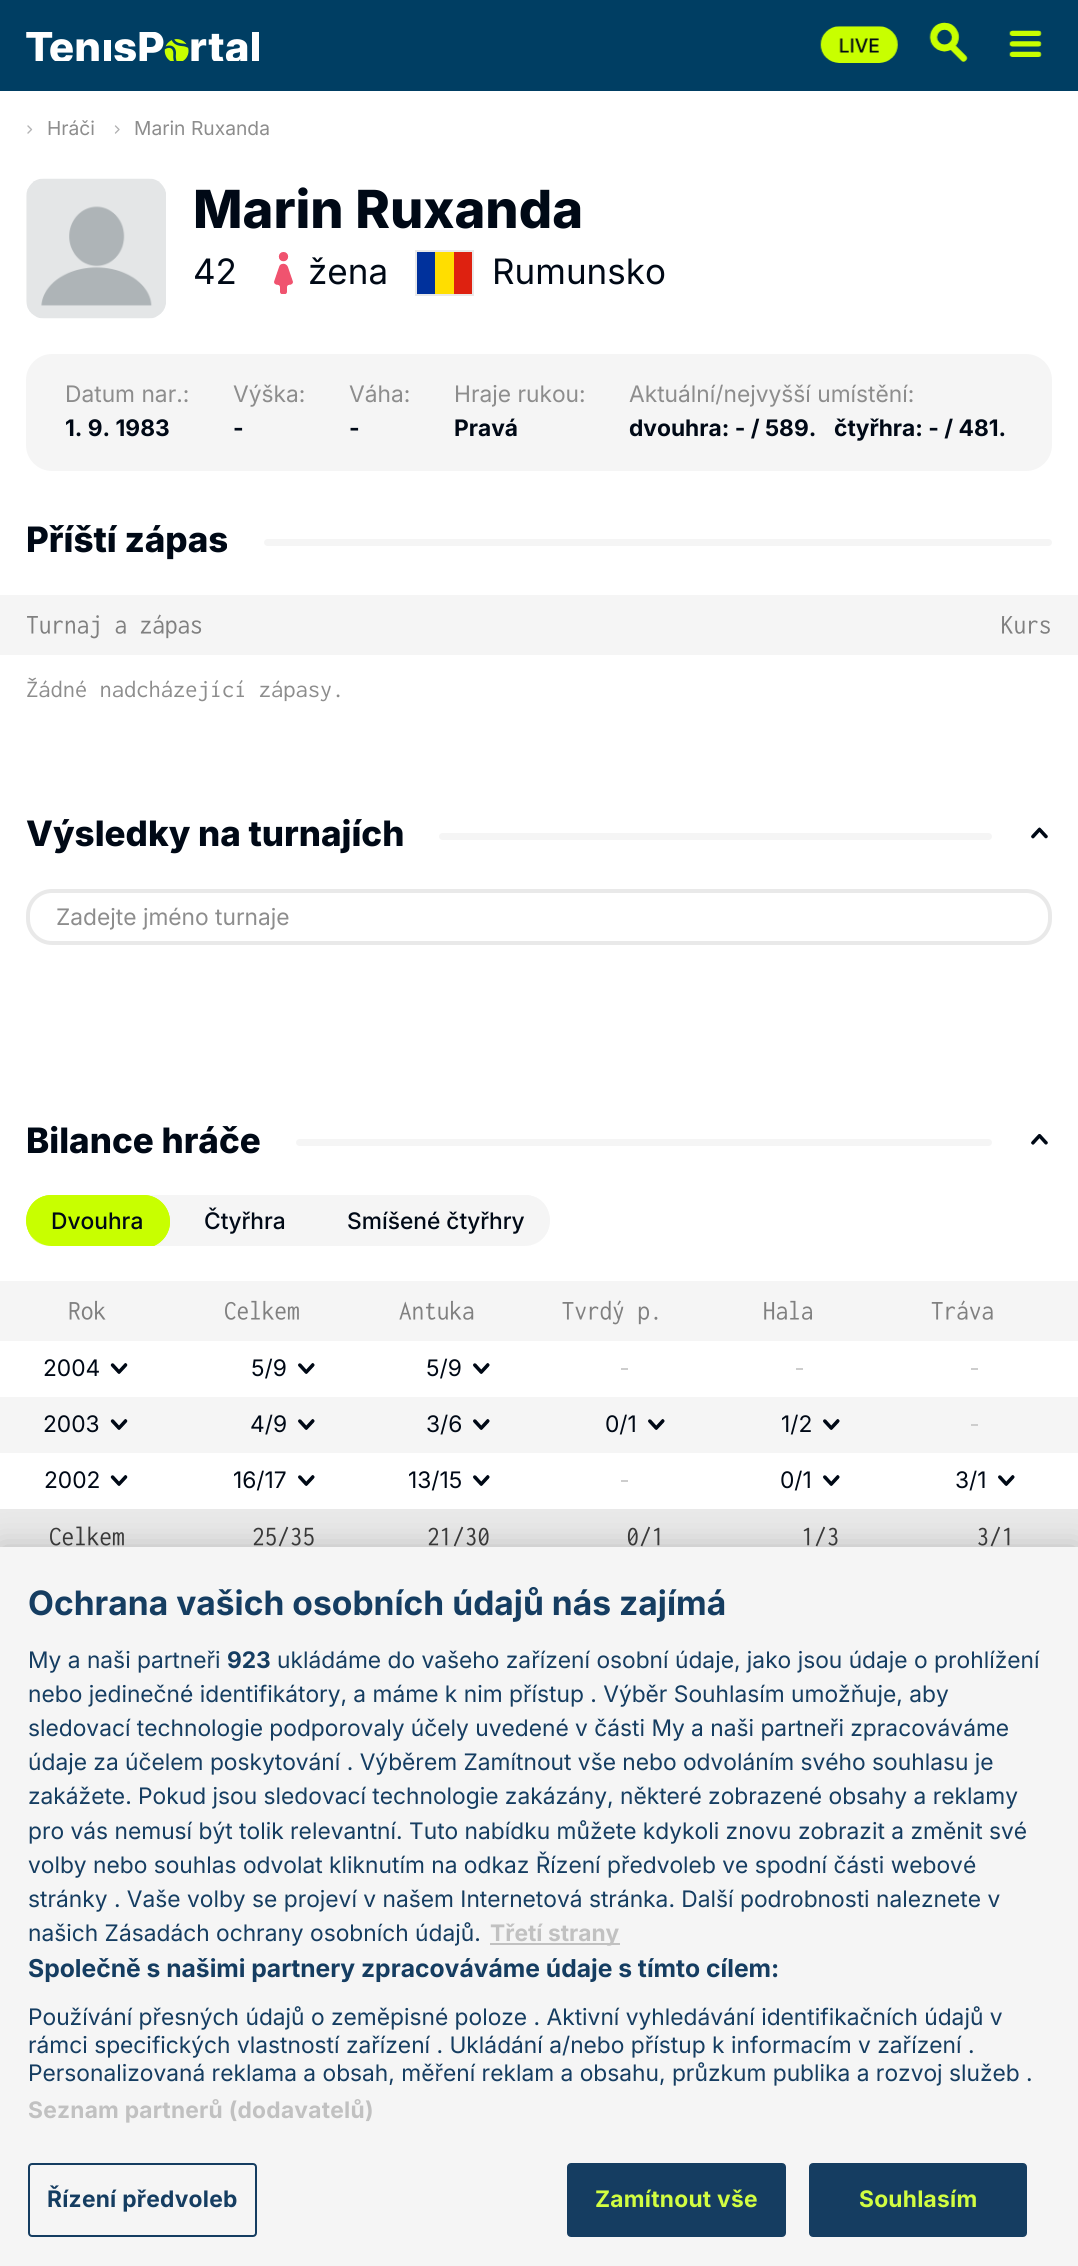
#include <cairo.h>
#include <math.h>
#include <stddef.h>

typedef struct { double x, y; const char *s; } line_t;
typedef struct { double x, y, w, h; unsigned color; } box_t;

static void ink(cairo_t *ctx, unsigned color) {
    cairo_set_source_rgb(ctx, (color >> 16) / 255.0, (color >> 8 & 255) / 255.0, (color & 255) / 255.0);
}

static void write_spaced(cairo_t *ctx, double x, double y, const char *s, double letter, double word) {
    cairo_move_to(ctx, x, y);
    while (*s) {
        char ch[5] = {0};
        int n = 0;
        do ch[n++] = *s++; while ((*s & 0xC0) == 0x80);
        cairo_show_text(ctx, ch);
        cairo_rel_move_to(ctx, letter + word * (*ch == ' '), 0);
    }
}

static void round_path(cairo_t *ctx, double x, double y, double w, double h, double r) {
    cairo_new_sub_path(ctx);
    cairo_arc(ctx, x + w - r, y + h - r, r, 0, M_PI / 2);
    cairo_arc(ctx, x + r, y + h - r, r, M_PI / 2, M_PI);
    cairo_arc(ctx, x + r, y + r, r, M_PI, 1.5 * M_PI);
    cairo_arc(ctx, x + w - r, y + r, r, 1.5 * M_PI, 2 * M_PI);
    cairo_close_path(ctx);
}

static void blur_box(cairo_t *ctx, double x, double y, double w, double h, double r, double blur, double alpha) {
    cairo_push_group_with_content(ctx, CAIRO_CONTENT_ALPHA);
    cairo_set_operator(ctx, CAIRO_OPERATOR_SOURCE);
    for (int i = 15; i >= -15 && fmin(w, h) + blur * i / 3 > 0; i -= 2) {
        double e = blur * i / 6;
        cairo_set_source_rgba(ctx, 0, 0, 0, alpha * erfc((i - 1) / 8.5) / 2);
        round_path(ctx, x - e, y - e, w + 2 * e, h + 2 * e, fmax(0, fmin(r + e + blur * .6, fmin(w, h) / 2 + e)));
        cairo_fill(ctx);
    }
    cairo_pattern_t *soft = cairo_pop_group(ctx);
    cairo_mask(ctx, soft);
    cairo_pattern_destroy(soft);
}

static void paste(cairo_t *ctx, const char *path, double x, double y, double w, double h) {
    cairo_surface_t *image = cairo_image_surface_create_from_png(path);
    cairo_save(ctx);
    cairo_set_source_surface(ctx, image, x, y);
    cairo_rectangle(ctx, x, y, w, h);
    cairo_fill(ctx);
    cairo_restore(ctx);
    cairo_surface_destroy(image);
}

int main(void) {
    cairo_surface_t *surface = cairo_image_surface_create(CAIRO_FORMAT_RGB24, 1078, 2266);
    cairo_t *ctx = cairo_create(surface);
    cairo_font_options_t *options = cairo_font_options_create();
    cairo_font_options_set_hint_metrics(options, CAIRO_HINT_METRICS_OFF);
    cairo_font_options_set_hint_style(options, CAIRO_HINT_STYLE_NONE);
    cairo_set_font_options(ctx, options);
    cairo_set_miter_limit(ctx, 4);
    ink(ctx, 0xFFFFFF);
    cairo_paint(ctx);
    ink(ctx, 0x003E63);
    cairo_rectangle(ctx, 0, 0, 1078, 91);
    cairo_fill(ctx);
    paste(ctx, "media/1.png", 26, 32, 233, 29);
    paste(ctx, "media/2.png", 820, 26, 78, 37);
    paste(ctx, "media/3.png", 929, 22, 39, 40);
    paste(ctx, "media/4.png", 1009, 30, 33, 27);
    paste(ctx, "media/5.png", 27, 125, 6, 9);
    cairo_select_font_face(ctx, "Inter", CAIRO_FONT_SLANT_NORMAL, CAIRO_FONT_WEIGHT_NORMAL);
    cairo_set_font_size(ctx, 19.25);
    ink(ctx, 0x8D8D8D);
    cairo_move_to(ctx, 47, 135);
    cairo_show_text(ctx, "Hráči");
    paste(ctx, "media/6.png", 114, 125, 6, 9);
    cairo_move_to(ctx, 134, 135);
    cairo_show_text(ctx, "Marin Ruxanda");
    paste(ctx, "media/7.png", 26, 178, 140, 141);
    cairo_select_font_face(ctx, "Inter ExtraBold", CAIRO_FONT_SLANT_NORMAL, CAIRO_FONT_WEIGHT_NORMAL);
    cairo_set_font_size(ctx, 52.5);
    ink(ctx, 0x000916);
    cairo_move_to(ctx, 193, 228);
    cairo_show_text(ctx, "Marin Ruxanda");
    cairo_select_font_face(ctx, "Inter", CAIRO_FONT_SLANT_NORMAL, CAIRO_FONT_WEIGHT_NORMAL);
    cairo_set_font_size(ctx, 35);
    cairo_move_to(ctx, 193, 284);
    cairo_show_text(ctx, "42");
    paste(ctx, "media/8.png", 274, 252, 19, 42);
    cairo_move_to(ctx, 308, 284);
    cairo_show_text(ctx, "žena");
    cairo_rectangle(ctx, 416, 251, 57, 44);
    ink(ctx, 0xE9E9E9);
    cairo_stroke(ctx);
    {
        static const box_t items[] = {
            {417, 252, 18, 42, 0x00319C},
            {435, 252, 19, 42, 0xFFDE00},
            {454, 252, 18, 42, 0xDE2110},
        };
        for (size_t i = 0; i < sizeof items / sizeof *items; i++) {
            ink(ctx, items[i].color);
            cairo_rectangle(ctx, items[i].x, items[i].y, items[i].w, items[i].h);
            cairo_fill(ctx);
        }
    }
    ink(ctx, 0x000916);
    cairo_move_to(ctx, 492, 284);
    cairo_show_text(ctx, "Rumunsko");
    ink(ctx, 0xF5F5F5);
    round_path(ctx, 26, 354, 1026, 117, 26);
    cairo_fill(ctx);
    cairo_set_font_size(ctx, 22.75);
    ink(ctx, 0x8D8D8D);
    cairo_move_to(ctx, 65, 402);
    cairo_show_text(ctx, "Datum nar.:");
    cairo_select_font_face(ctx, "Inter", CAIRO_FONT_SLANT_NORMAL, CAIRO_FONT_WEIGHT_BOLD);
    ink(ctx, 0x000916);
    cairo_move_to(ctx, 65, 436);
    cairo_show_text(ctx, "1. 9. 1983");
    cairo_select_font_face(ctx, "Inter", CAIRO_FONT_SLANT_NORMAL, CAIRO_FONT_WEIGHT_NORMAL);
    ink(ctx, 0x8D8D8D);
    cairo_move_to(ctx, 233, 402);
    cairo_show_text(ctx, "Výška:");
    cairo_select_font_face(ctx, "Inter", CAIRO_FONT_SLANT_NORMAL, CAIRO_FONT_WEIGHT_BOLD);
    ink(ctx, 0x000916);
    cairo_move_to(ctx, 233, 436);
    cairo_show_text(ctx, "-");
    cairo_select_font_face(ctx, "Inter", CAIRO_FONT_SLANT_NORMAL, CAIRO_FONT_WEIGHT_NORMAL);
    ink(ctx, 0x8D8D8D);
    cairo_move_to(ctx, 349, 402);
    cairo_show_text(ctx, "Váha:");
    cairo_select_font_face(ctx, "Inter", CAIRO_FONT_SLANT_NORMAL, CAIRO_FONT_WEIGHT_BOLD);
    ink(ctx, 0x000916);
    cairo_move_to(ctx, 349, 436);
    cairo_show_text(ctx, "-");
    cairo_select_font_face(ctx, "Inter", CAIRO_FONT_SLANT_NORMAL, CAIRO_FONT_WEIGHT_NORMAL);
    ink(ctx, 0x8D8D8D);
    cairo_move_to(ctx, 454, 402);
    cairo_show_text(ctx, "Hraje rukou:");
    cairo_select_font_face(ctx, "Inter", CAIRO_FONT_SLANT_NORMAL, CAIRO_FONT_WEIGHT_BOLD);
    ink(ctx, 0x000916);
    cairo_move_to(ctx, 454, 436);
    cairo_show_text(ctx, "Pravá");
    cairo_select_font_face(ctx, "Inter", CAIRO_FONT_SLANT_NORMAL, CAIRO_FONT_WEIGHT_NORMAL);
    ink(ctx, 0x8D8D8D);
    cairo_move_to(ctx, 629, 402);
    cairo_show_text(ctx, "Aktuální/nejvyšší umístění:");
    cairo_select_font_face(ctx, "Inter", CAIRO_FONT_SLANT_NORMAL, CAIRO_FONT_WEIGHT_BOLD);
    ink(ctx, 0x000916);
    cairo_move_to(ctx, 629, 436);
    cairo_show_text(ctx, "dvouhra: - / 589.");
    cairo_move_to(ctx, 834, 436);
    cairo_show_text(ctx, "čtyřhra: - / 481.");
    cairo_select_font_face(ctx, "Inter ExtraBold", CAIRO_FONT_SLANT_NORMAL, CAIRO_FONT_WEIGHT_NORMAL);
    cairo_set_font_size(ctx, 35);
    cairo_move_to(ctx, 26, 552);
    cairo_show_text(ctx, "Příští zápas");
    ink(ctx, 0xF5F5F5);
    round_path(ctx, 264, 539, 788, 7, 3.5);
    cairo_fill(ctx);
    cairo_rectangle(ctx, 0, 595, 1078, 60);
    cairo_fill(ctx);
    paste(ctx, "media/9.png", 27, 614, 175, 25);
    paste(ctx, "media/10.png", 1002, 616, 48, 18);
    cairo_select_font_face(ctx, "Inconsolata", CAIRO_FONT_SLANT_NORMAL, CAIRO_FONT_WEIGHT_NORMAL);
    cairo_set_font_size(ctx, 24.5);
    ink(ctx, 0x8D8D8D);
    cairo_move_to(ctx, 26, 697);
    cairo_show_text(ctx, "Žádné nadcházející zápasy.");
    cairo_select_font_face(ctx, "Inter ExtraBold", CAIRO_FONT_SLANT_NORMAL, CAIRO_FONT_WEIGHT_NORMAL);
    cairo_set_font_size(ctx, 35);
    ink(ctx, 0x000916);
    cairo_move_to(ctx, 26, 846);
    cairo_show_text(ctx, "Výsledky na turnajích");
    ink(ctx, 0xF5F5F5);
    round_path(ctx, 439, 833, 553, 7, 3.5);
    cairo_fill(ctx);
    paste(ctx, "media/11.png", 1031, 827, 17, 12);
    round_path(ctx, 28, 891, 1022, 52, 24);
    ink(ctx, 0xE9E9E9);
    cairo_set_line_width(ctx, 4);
    cairo_stroke(ctx);
    cairo_select_font_face(ctx, "Inter", CAIRO_FONT_SLANT_NORMAL, CAIRO_FONT_WEIGHT_NORMAL);
    cairo_set_font_size(ctx, 22.75);
    ink(ctx, 0x8D8D8D);
    cairo_move_to(ctx, 56, 925);
    cairo_show_text(ctx, "Zadejte jméno turnaje");
    cairo_select_font_face(ctx, "Inter ExtraBold", CAIRO_FONT_SLANT_NORMAL, CAIRO_FONT_WEIGHT_NORMAL);
    cairo_set_font_size(ctx, 35);
    ink(ctx, 0x000916);
    cairo_move_to(ctx, 26, 1153);
    cairo_show_text(ctx, "Bilance hráče");
    ink(ctx, 0xF5F5F5);
    round_path(ctx, 296, 1139, 696, 7, 3.5);
    cairo_fill(ctx);
    paste(ctx, "media/12.png", 1031, 1134, 17, 11);
    round_path(ctx, 26, 1195, 524, 51, 25.5);
    cairo_fill(ctx);
    cairo_save(ctx);
    round_path(ctx, 26, 1195, 524, 51, 25.5);
    cairo_clip(ctx);
    ink(ctx, 0xC8FF00);
    round_path(ctx, 25, 1195, 145, 53, 26.5);
    cairo_fill(ctx);
    cairo_restore(ctx);
    ink(ctx, 0xC8FF00);
    cairo_new_path(ctx);
    cairo_move_to(ctx, 52, 1195);
    cairo_curve_to(ctx, 18, 1195, 18, 1246, 51, 1246);
    cairo_curve_to(ctx, 22, 1246, 18, 1203, 47, 1197);
    cairo_curve_to(ctx, 52, 1196, 65, 1197, 67, 1197);
    cairo_line_to(ctx, 144, 1197);
    cairo_curve_to(ctx, 176, 1198, 175, 1246, 144, 1246);
    cairo_line_to(ctx, 154, 1246);
    cairo_curve_to(ctx, 163, 1242, 170, 1233, 170, 1222);
    cairo_curve_to(ctx, 170, 1207, 158, 1195, 144, 1195);
    cairo_close_path(ctx);
    cairo_fill(ctx);
    cairo_select_font_face(ctx, "Inter Medium", CAIRO_FONT_SLANT_NORMAL, CAIRO_FONT_WEIGHT_NORMAL);
    cairo_set_font_size(ctx, 22.75);
    ink(ctx, 0x000916);
    cairo_move_to(ctx, 51, 1229);
    cairo_show_text(ctx, "Dvouhra");
    cairo_move_to(ctx, 204, 1229);
    cairo_show_text(ctx, "Čtyřhra");
    ink(ctx, 0xF5F5F5);
    cairo_new_path(ctx);
    cairo_move_to(ctx, 346, 1195);
    cairo_curve_to(ctx, 332, 1195, 320, 1207, 320, 1222);
    cairo_curve_to(ctx, 320, 1233, 327, 1242, 336, 1246);
    cairo_line_to(ctx, 346, 1246);
    cairo_curve_to(ctx, 320, 1246, 313, 1209, 337, 1199);
    cairo_curve_to(ctx, 348, 1194, 369, 1197, 376, 1197);
    cairo_line_to(ctx, 524, 1197);
    cairo_curve_to(ctx, 557, 1197, 556, 1246, 524, 1246);
    cairo_curve_to(ctx, 558, 1246, 558, 1195, 525, 1195);
    cairo_close_path(ctx);
    cairo_fill(ctx);
    ink(ctx, 0x000916);
    cairo_move_to(ctx, 347, 1229);
    cairo_show_text(ctx, "Smíšené čtyřhry");
    ink(ctx, 0xF5F5F5);
    cairo_rectangle(ctx, 0, 1281, 1078, 60);
    cairo_fill(ctx);
    paste(ctx, "media/13.png", 69, 1300, 37, 20);
    paste(ctx, "media/14.png", 225, 1300, 74, 20);
    paste(ctx, "media/15.png", 399, 1300, 75, 20);
    paste(ctx, "media/16.png", 562, 1300, 96, 25);
    paste(ctx, "media/17.png", 764, 1300, 48, 20);
    paste(ctx, "media/18.png", 931, 1300, 62, 20);
    cairo_select_font_face(ctx, "Inter", CAIRO_FONT_SLANT_NORMAL, CAIRO_FONT_WEIGHT_NORMAL);
    ink(ctx, 0x000916);
    cairo_move_to(ctx, 43, 1376);
    cairo_show_text(ctx, "2004");
    paste(ctx, "media/19.png", 110, 1363, 18, 11);
    cairo_move_to(ctx, 251, 1376);
    cairo_show_text(ctx, "5/9");
    paste(ctx, "media/20.png", 298, 1363, 17, 11);
    cairo_move_to(ctx, 426, 1376);
    cairo_show_text(ctx, "5/9");
    paste(ctx, "media/20.png", 473, 1363, 17, 11);
    {
        static const box_t items[] = {
            {621, 1368, 7, 2, 0xCDCDCD},
            {796, 1368, 7, 2, 0xCDCDCD},
            {971, 1368, 7, 2, 0xCDCDCD},
            {0, 1397, 1078, 56, 0xF5F5F5},
        };
        for (size_t i = 0; i < sizeof items / sizeof *items; i++) {
            ink(ctx, items[i].color);
            cairo_rectangle(ctx, items[i].x, items[i].y, items[i].w, items[i].h);
            cairo_fill(ctx);
        }
    }
    ink(ctx, 0x000916);
    cairo_move_to(ctx, 43, 1432);
    cairo_show_text(ctx, "2003");
    paste(ctx, "media/21.png", 110, 1419, 18, 11);
    cairo_move_to(ctx, 250, 1432);
    cairo_show_text(ctx, "4/9");
    paste(ctx, "media/22.png", 298, 1419, 17, 11);
    cairo_move_to(ctx, 426, 1432);
    cairo_show_text(ctx, "3/6");
    paste(ctx, "media/22.png", 473, 1419, 17, 11);
    cairo_move_to(ctx, 605, 1432);
    cairo_show_text(ctx, "0/1");
    paste(ctx, "media/22.png", 648, 1419, 17, 11);
    cairo_move_to(ctx, 781, 1432);
    cairo_show_text(ctx, "1/2");
    paste(ctx, "media/22.png", 823, 1419, 17, 11);
    ink(ctx, 0xCDCDCD);
    cairo_rectangle(ctx, 971, 1424, 7, 2);
    cairo_fill(ctx);
    ink(ctx, 0x000916);
    cairo_move_to(ctx, 44, 1488);
    cairo_show_text(ctx, "2002");
    paste(ctx, "media/19.png", 110, 1475, 18, 11);
    cairo_move_to(ctx, 233, 1488);
    cairo_show_text(ctx, "16/17");
    paste(ctx, "media/20.png", 298, 1475, 17, 11);
    cairo_move_to(ctx, 408, 1488);
    cairo_show_text(ctx, "13/15");
    paste(ctx, "media/20.png", 473, 1475, 17, 11);
    ink(ctx, 0xCDCDCD);
    cairo_rectangle(ctx, 621, 1480, 7, 2);
    cairo_fill(ctx);
    ink(ctx, 0x000916);
    cairo_move_to(ctx, 780, 1488);
    cairo_show_text(ctx, "0/1");
    paste(ctx, "media/20.png", 823, 1475, 17, 11);
    cairo_move_to(ctx, 955, 1488);
    cairo_show_text(ctx, "3/1");
    paste(ctx, "media/20.png", 998, 1475, 17, 11);
    ink(ctx, 0xE9E9E9);
    cairo_rectangle(ctx, 0, 1509, 1078, 38);
    cairo_fill(ctx);
    paste(ctx, "media/23.png", 50, 1526, 74, 20);
    paste(ctx, "media/24.png", 253, 1526, 61, 21);
    paste(ctx, "media/25.png", 428, 1526, 61, 21);
    paste(ctx, "media/26.png", 627, 1526, 33, 21);
    paste(ctx, "media/27.png", 803, 1526, 35, 21);
    paste(ctx, "media/28.png", 978, 1526, 32, 21);
    ink(ctx, 0x000000);
    blur_box(ctx, 0, 1547, 1078, 719, 0, 16, 0.2);
    ink(ctx, 0xF5F5F5);
    cairo_rectangle(ctx, 0, 1547, 1078, 719);
    cairo_fill(ctx);
    cairo_select_font_face(ctx, "Inter", CAIRO_FONT_SLANT_NORMAL, CAIRO_FONT_WEIGHT_BOLD);
    cairo_set_font_size(ctx, 33.6);
    ink(ctx, 0x153D61);
    cairo_move_to(ctx, 28, 1615);
    cairo_show_text(ctx, "Ochrana vašich osobních údajů nás zajímá");
    cairo_select_font_face(ctx, "Inter", CAIRO_FONT_SLANT_NORMAL, CAIRO_FONT_WEIGHT_NORMAL);
    cairo_set_font_size(ctx, 22.75);
    cairo_move_to(ctx, 28, 1668);
    cairo_show_text(ctx, "My a naši partneři");
    cairo_select_font_face(ctx, "Inter", CAIRO_FONT_SLANT_NORMAL, CAIRO_FONT_WEIGHT_BOLD);
    cairo_move_to(ctx, 227, 1668);
    cairo_show_text(ctx, "923");
    cairo_select_font_face(ctx, "Inter", CAIRO_FONT_SLANT_NORMAL, CAIRO_FONT_WEIGHT_NORMAL);
    {
        static const line_t items[] = {
            {277, 1668, "ukládáme do vašeho zařízení osobní údaje, jako jsou údaje o prohlížení"},
            {28, 1702, "nebo jedinečné identifikátory, a máme k nim přístup . Výběr Souhlasím umožňuje, aby"},
            {28, 1736, "sledovací technologie podporovaly účely uvedené v části My a naši partneři zpracováváme"},
            {28, 1770, "údaje za účelem poskytování . Výběrem Zamítnout vše nebo odvoláním svého souhlasu je"},
            {28, 1804, "zakážete. Pokud jsou sledovací technologie zakázány, některé zobrazené obsahy a reklamy"},
            {28, 1839, "pro vás nemusí být tolik relevantní. Tuto nabídku můžete kdykoli znovu zobrazit a změnit své"},
            {28, 1873, "volby nebo souhlas odvolat kliknutím na odkaz Řízení předvoleb ve spodní části webové"},
            {28, 1907, "stránky . Vaše volby se projeví v našem Internetová stránka. Další podrobnosti naleznete v"},
            {28, 1941, "našich Zásadách ochrany osobních údajů."},
        };
        for (size_t i = 0; i < sizeof items / sizeof *items; i++) {
            cairo_move_to(ctx, items[i].x, items[i].y);
            cairo_show_text(ctx, items[i].s);
        }
    }
    ink(ctx, 0xC1C1C1);
    cairo_rectangle(ctx, 490, 1943, 130, 2);
    cairo_fill(ctx);
    cairo_select_font_face(ctx, "Inter", CAIRO_FONT_SLANT_NORMAL, CAIRO_FONT_WEIGHT_BOLD);
    cairo_move_to(ctx, 490, 1941);
    cairo_show_text(ctx, "Třetí strany");
    cairo_set_font_size(ctx, 24.65);
    ink(ctx, 0x153D61);
    cairo_move_to(ctx, 28, 1977);
    cairo_show_text(ctx, "Společně s našimi partnery zpracováváme údaje s tímto cílem:");
    cairo_select_font_face(ctx, "Inter", CAIRO_FONT_SLANT_NORMAL, CAIRO_FONT_WEIGHT_NORMAL);
    cairo_set_font_size(ctx, 22.75);
    {
        static const line_t items[] = {
            {28, 2025, "Používání přesných údajů o zeměpisné poloze . Aktivní vyhledávání identifikačních údajů v"},
            {28, 2053, "rámci specifických vlastností zařízení . Ukládání a/nebo přístup k informacím v zařízení"},
            {968, 2053, "."},
            {28, 2081, "Personalizovaná reklama a obsah, měření reklam a obsahu, průzkum publika a rozvoj služeb ."},
        };
        for (size_t i = 0; i < sizeof items / sizeof *items; i++) {
            cairo_move_to(ctx, items[i].x, items[i].y);
            cairo_show_text(ctx, items[i].s);
        }
    }
    cairo_select_font_face(ctx, "Inter", CAIRO_FONT_SLANT_NORMAL, CAIRO_FONT_WEIGHT_BOLD);
    ink(ctx, 0xC1C1C1);
    write_spaced(ctx, 28, 2118, "Seznam partnerů (dodavatelů)", 0.25, 0);
    round_path(ctx, 29, 2164, 227, 72, 3);
    ink(ctx, 0x153D61);
    cairo_set_line_width(ctx, 2);
    cairo_stroke(ctx);
    write_spaced(ctx, 47, 2207, "Řízení předvoleb", 0.25, 0);
    round_path(ctx, 568, 2164, 217, 72, 3);
    cairo_fill_preserve(ctx);
    cairo_stroke(ctx);
    ink(ctx, 0xD2FD41);
    write_spaced(ctx, 595, 2207, "Zamítnout vše", 0.25, 0);
    ink(ctx, 0x153D61);
    round_path(ctx, 810, 2164, 216, 72, 3);
    cairo_fill_preserve(ctx);
    cairo_stroke(ctx);
    ink(ctx, 0xD2FD41);
    write_spaced(ctx, 859, 2207, "Souhlasím", 0.25, 0);
    cairo_surface_write_to_png(surface, "image.png");
    cairo_font_options_destroy(options);
    cairo_destroy(ctx);
    cairo_surface_destroy(surface);
    return 0;
}
